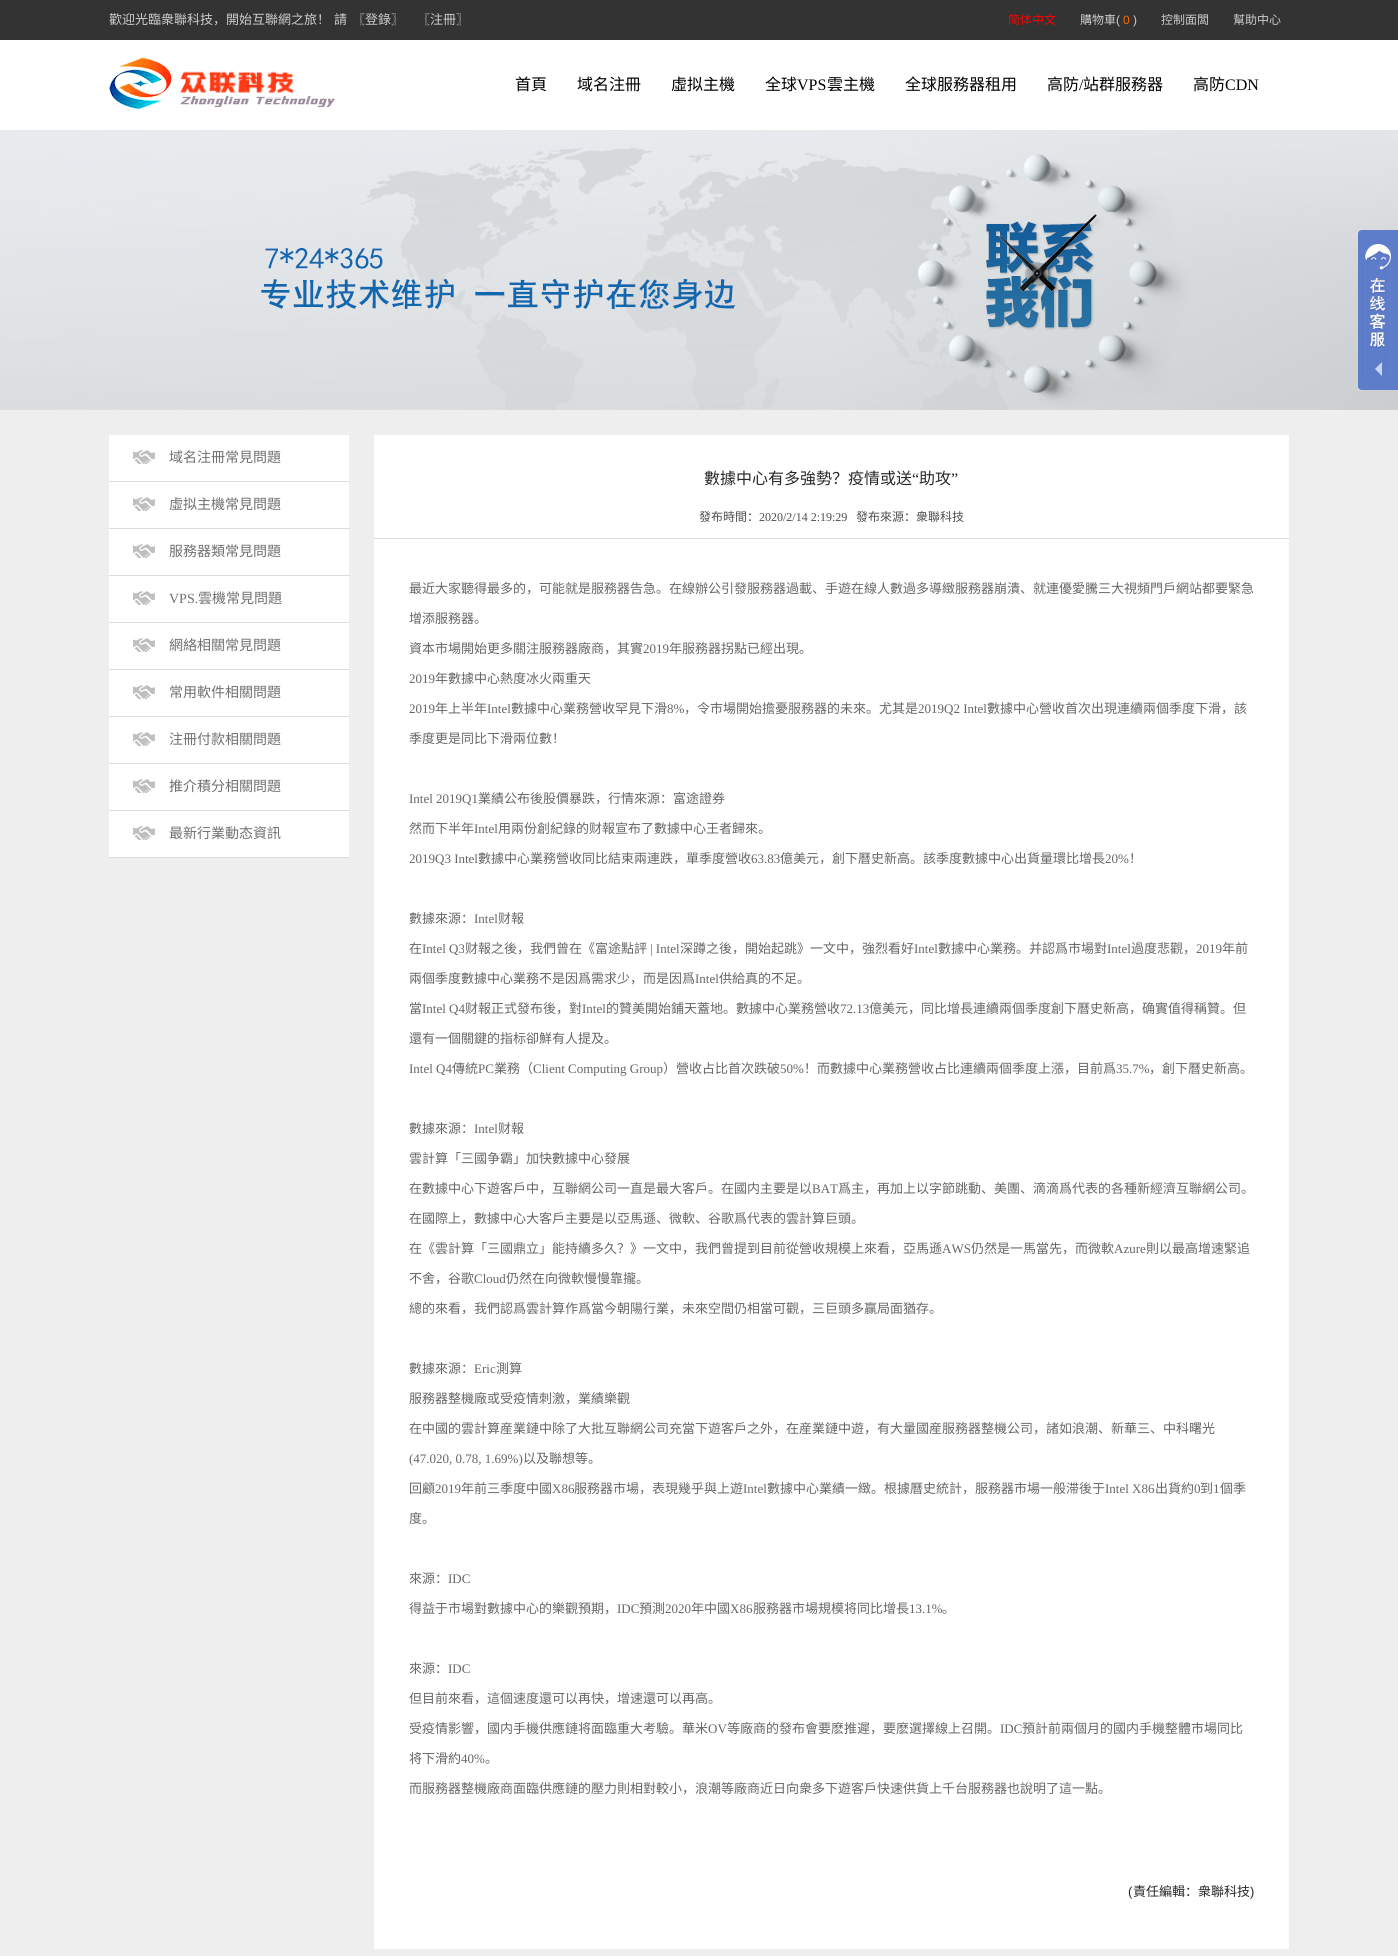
#include <cairo.h>
#include <math.h>
#include <stddef.h>

typedef struct { double x, y; const char *s; } line_t;

static void ink(cairo_t *ctx, unsigned color) {
    cairo_set_source_rgb(ctx, (color >> 16) / 255.0, (color >> 8 & 255) / 255.0, (color & 255) / 255.0);
}

static void paste(cairo_t *ctx, const char *path, double x, double y, double w, double h) {
    cairo_surface_t *image = cairo_image_surface_create_from_png(path);
    cairo_save(ctx);
    cairo_set_source_surface(ctx, image, x, y);
    cairo_rectangle(ctx, x, y, w, h);
    cairo_fill(ctx);
    cairo_restore(ctx);
    cairo_surface_destroy(image);
}

int main(void) {
    cairo_surface_t *surface = cairo_image_surface_create(CAIRO_FORMAT_RGB24, 1398, 1956);
    cairo_t *ctx = cairo_create(surface);
    cairo_font_options_t *options = cairo_font_options_create();
    cairo_font_options_set_hint_metrics(options, CAIRO_HINT_METRICS_OFF);
    cairo_font_options_set_hint_style(options, CAIRO_HINT_STYLE_NONE);
    cairo_set_font_options(ctx, options);
    cairo_set_miter_limit(ctx, 4);
    ink(ctx, 0xEEEEEE);
    cairo_paint(ctx);
    ink(ctx, 0x333333);
    cairo_rectangle(ctx, 0, 0, 1398, 40);
    cairo_fill(ctx);
    cairo_select_font_face(ctx, "Noto Sans CJK SC", CAIRO_FONT_SLANT_NORMAL, CAIRO_FONT_WEIGHT_NORMAL);
    cairo_set_font_size(ctx, 13);
    ink(ctx, 0xCCCCCC);
    {
        static const line_t items[] = {
            {109, 24, "歡迎光臨衆聯科技，開始互聯網之旅！"},
            {334, 24, "請"},
            {352, 24, "〖登錄〗"},
            {417, 24, "〖注冊〗"},
        };
        for (size_t i = 0; i < sizeof items / sizeof *items; i++) {
            cairo_move_to(ctx, items[i].x, items[i].y);
            cairo_show_text(ctx, items[i].s);
        }
    }
    cairo_set_font_size(ctx, 12);
    ink(ctx, 0xFF0000);
    cairo_move_to(ctx, 1008, 24);
    cairo_show_text(ctx, "简体中文");
    ink(ctx, 0xCCCCCC);
    cairo_move_to(ctx, 1080, 24);
    cairo_show_text(ctx, "購物車");
    cairo_select_font_face(ctx, "Liberation Sans", CAIRO_FONT_SLANT_NORMAL, CAIRO_FONT_WEIGHT_NORMAL);
    cairo_move_to(ctx, 1116, 24);
    cairo_show_text(ctx, "(");
    ink(ctx, 0xFF6800);
    cairo_move_to(ctx, 1123, 24);
    cairo_show_text(ctx, "0");
    ink(ctx, 0xCCCCCC);
    cairo_move_to(ctx, 1133, 24);
    cairo_show_text(ctx, ")");
    cairo_select_font_face(ctx, "Noto Sans CJK SC", CAIRO_FONT_SLANT_NORMAL, CAIRO_FONT_WEIGHT_NORMAL);
    cairo_move_to(ctx, 1161, 24);
    cairo_show_text(ctx, "控制面闆");
    cairo_move_to(ctx, 1233, 24);
    cairo_show_text(ctx, "幫助中心");
    ink(ctx, 0xFFFFFF);
    cairo_rectangle(ctx, 0, 40, 1398, 90);
    cairo_fill(ctx);
    paste(ctx, "media/1.png", 109, 57, 226, 53);
    cairo_set_font_size(ctx, 16);
    ink(ctx, 0x000000);
    {
        static const line_t items[] = {
            {515, 90, "首頁"},
            {577, 90, "域名注冊"},
            {671, 90, "虛拟主機"},
            {765, 90, "全球"},
        };
        for (size_t i = 0; i < sizeof items / sizeof *items; i++) {
            cairo_move_to(ctx, items[i].x, items[i].y);
            cairo_show_text(ctx, items[i].s);
        }
    }
    cairo_select_font_face(ctx, "Liberation Serif", CAIRO_FONT_SLANT_NORMAL, CAIRO_FONT_WEIGHT_NORMAL);
    cairo_move_to(ctx, 797, 90);
    cairo_show_text(ctx, "VPS");
    cairo_select_font_face(ctx, "Noto Sans CJK SC", CAIRO_FONT_SLANT_NORMAL, CAIRO_FONT_WEIGHT_NORMAL);
    {
        static const line_t items[] = {
            {827, 90, "雲主機"},
            {905, 90, "全球服務器租用"},
            {1047, 90, "高防"},
        };
        for (size_t i = 0; i < sizeof items / sizeof *items; i++) {
            cairo_move_to(ctx, items[i].x, items[i].y);
            cairo_show_text(ctx, items[i].s);
        }
    }
    cairo_select_font_face(ctx, "Liberation Serif", CAIRO_FONT_SLANT_NORMAL, CAIRO_FONT_WEIGHT_NORMAL);
    cairo_move_to(ctx, 1079, 90);
    cairo_show_text(ctx, "/");
    cairo_select_font_face(ctx, "Noto Sans CJK SC", CAIRO_FONT_SLANT_NORMAL, CAIRO_FONT_WEIGHT_NORMAL);
    cairo_move_to(ctx, 1083, 90);
    cairo_show_text(ctx, "站群服務器");
    cairo_move_to(ctx, 1193, 90);
    cairo_show_text(ctx, "高防");
    cairo_select_font_face(ctx, "Liberation Serif", CAIRO_FONT_SLANT_NORMAL, CAIRO_FONT_WEIGHT_NORMAL);
    cairo_move_to(ctx, 1225, 90);
    cairo_show_text(ctx, "CDN");
    paste(ctx, "media/2.png", 0, 130, 1398, 280);
    paste(ctx, "media/3.png", 1358, 230, 40, 160);
    ink(ctx, 0xFFFFFF);
    cairo_rectangle(ctx, 109, 435, 240, 46);
    cairo_fill(ctx);
    ink(ctx, 0xDDDDDD);
    cairo_rectangle(ctx, 109, 481, 240, 1);
    cairo_fill(ctx);
    paste(ctx, "media/4.png", 133, 450, 22, 14);
    cairo_select_font_face(ctx, "Noto Sans CJK SC", CAIRO_FONT_SLANT_NORMAL, CAIRO_FONT_WEIGHT_NORMAL);
    cairo_set_font_size(ctx, 14);
    ink(ctx, 0x707070);
    cairo_move_to(ctx, 169, 462);
    cairo_show_text(ctx, "域名注冊常見問題");
    ink(ctx, 0xFFFFFF);
    cairo_rectangle(ctx, 109, 482, 240, 46);
    cairo_fill(ctx);
    ink(ctx, 0xDDDDDD);
    cairo_rectangle(ctx, 109, 528, 240, 1);
    cairo_fill(ctx);
    paste(ctx, "media/4.png", 133, 497, 22, 14);
    ink(ctx, 0x707070);
    cairo_move_to(ctx, 169, 509);
    cairo_show_text(ctx, "虛拟主機常見問題");
    ink(ctx, 0xFFFFFF);
    cairo_rectangle(ctx, 109, 529, 240, 46);
    cairo_fill(ctx);
    ink(ctx, 0xDDDDDD);
    cairo_rectangle(ctx, 109, 575, 240, 1);
    cairo_fill(ctx);
    paste(ctx, "media/4.png", 133, 544, 22, 14);
    ink(ctx, 0x707070);
    cairo_move_to(ctx, 169, 556);
    cairo_show_text(ctx, "服務器類常見問題");
    ink(ctx, 0xFFFFFF);
    cairo_rectangle(ctx, 109, 576, 240, 46);
    cairo_fill(ctx);
    ink(ctx, 0xDDDDDD);
    cairo_rectangle(ctx, 109, 622, 240, 1);
    cairo_fill(ctx);
    paste(ctx, "media/4.png", 133, 591, 22, 14);
    cairo_select_font_face(ctx, "Liberation Serif", CAIRO_FONT_SLANT_NORMAL, CAIRO_FONT_WEIGHT_NORMAL);
    ink(ctx, 0x707070);
    cairo_move_to(ctx, 169, 603);
    cairo_show_text(ctx, "VPS.");
    cairo_select_font_face(ctx, "Noto Sans CJK SC", CAIRO_FONT_SLANT_NORMAL, CAIRO_FONT_WEIGHT_NORMAL);
    cairo_move_to(ctx, 198, 603);
    cairo_show_text(ctx, "雲機常見問題");
    ink(ctx, 0xFFFFFF);
    cairo_rectangle(ctx, 109, 623, 240, 46);
    cairo_fill(ctx);
    ink(ctx, 0xDDDDDD);
    cairo_rectangle(ctx, 109, 669, 240, 1);
    cairo_fill(ctx);
    paste(ctx, "media/4.png", 133, 638, 22, 14);
    ink(ctx, 0x707070);
    cairo_move_to(ctx, 169, 650);
    cairo_show_text(ctx, "網絡相關常見問題");
    ink(ctx, 0xFFFFFF);
    cairo_rectangle(ctx, 109, 670, 240, 46);
    cairo_fill(ctx);
    ink(ctx, 0xDDDDDD);
    cairo_rectangle(ctx, 109, 716, 240, 1);
    cairo_fill(ctx);
    paste(ctx, "media/4.png", 133, 685, 22, 14);
    ink(ctx, 0x707070);
    cairo_move_to(ctx, 169, 697);
    cairo_show_text(ctx, "常用軟件相關問題");
    ink(ctx, 0xFFFFFF);
    cairo_rectangle(ctx, 109, 717, 240, 46);
    cairo_fill(ctx);
    ink(ctx, 0xDDDDDD);
    cairo_rectangle(ctx, 109, 763, 240, 1);
    cairo_fill(ctx);
    paste(ctx, "media/4.png", 133, 732, 22, 14);
    ink(ctx, 0x707070);
    cairo_move_to(ctx, 169, 744);
    cairo_show_text(ctx, "注冊付款相關問題");
    ink(ctx, 0xFFFFFF);
    cairo_rectangle(ctx, 109, 764, 240, 46);
    cairo_fill(ctx);
    ink(ctx, 0xDDDDDD);
    cairo_rectangle(ctx, 109, 810, 240, 1);
    cairo_fill(ctx);
    paste(ctx, "media/4.png", 133, 779, 22, 14);
    ink(ctx, 0x707070);
    cairo_move_to(ctx, 169, 791);
    cairo_show_text(ctx, "推介積分相關問題");
    ink(ctx, 0xFFFFFF);
    cairo_rectangle(ctx, 109, 811, 240, 46);
    cairo_fill(ctx);
    ink(ctx, 0xDDDDDD);
    cairo_rectangle(ctx, 109, 857, 240, 1);
    cairo_fill(ctx);
    paste(ctx, "media/4.png", 133, 826, 22, 14);
    ink(ctx, 0x707070);
    cairo_move_to(ctx, 169, 838);
    cairo_show_text(ctx, "最新行業動态資訊");
    ink(ctx, 0xFFFFFF);
    cairo_rectangle(ctx, 374, 435, 915, 1514);
    cairo_fill(ctx);
    ink(ctx, 0xDDDDDD);
    cairo_rectangle(ctx, 374, 538, 915, 1);
    cairo_fill(ctx);
    cairo_set_font_size(ctx, 16);
    ink(ctx, 0x282828);
    cairo_move_to(ctx, 704, 484);
    cairo_show_text(ctx, "數據中心有多強勢？疫情或送");
    cairo_select_font_face(ctx, "Liberation Serif", CAIRO_FONT_SLANT_NORMAL, CAIRO_FONT_WEIGHT_NORMAL);
    cairo_move_to(ctx, 912, 484);
    cairo_show_text(ctx, "“");
    cairo_select_font_face(ctx, "Noto Sans CJK SC", CAIRO_FONT_SLANT_NORMAL, CAIRO_FONT_WEIGHT_NORMAL);
    cairo_move_to(ctx, 919, 484);
    cairo_show_text(ctx, "助攻");
    cairo_select_font_face(ctx, "Liberation Serif", CAIRO_FONT_SLANT_NORMAL, CAIRO_FONT_WEIGHT_NORMAL);
    cairo_move_to(ctx, 951, 484);
    cairo_show_text(ctx, "”");
    cairo_select_font_face(ctx, "Noto Sans CJK SC", CAIRO_FONT_SLANT_NORMAL, CAIRO_FONT_WEIGHT_NORMAL);
    cairo_set_font_size(ctx, 12);
    ink(ctx, 0x4D4D4D);
    cairo_move_to(ctx, 699, 521);
    cairo_show_text(ctx, "發布時間：");
    cairo_select_font_face(ctx, "Liberation Serif", CAIRO_FONT_SLANT_NORMAL, CAIRO_FONT_WEIGHT_NORMAL);
    cairo_move_to(ctx, 759, 521);
    cairo_show_text(ctx, "2020/2/14 2:19:29");
    cairo_select_font_face(ctx, "Noto Sans CJK SC", CAIRO_FONT_SLANT_NORMAL, CAIRO_FONT_WEIGHT_NORMAL);
    cairo_move_to(ctx, 856, 521);
    cairo_show_text(ctx, "發布來源：衆聯科技");
    cairo_set_font_size(ctx, 13);
    ink(ctx, 0x666666);
    {
        static const line_t items[] = {
            {409, 593, "最近大家聽得最多的，可能就是服務器告急。在線辦公引發服務器過載、手遊在線人數過多導緻服務器崩潰、就連優愛騰三大視頻門戶網站都要緊急"},
            {409, 623, "增添服務器。"},
            {409, 653, "資本市場開始更多關注服務器廠商，其實"},
        };
        for (size_t i = 0; i < sizeof items / sizeof *items; i++) {
            cairo_move_to(ctx, items[i].x, items[i].y);
            cairo_show_text(ctx, items[i].s);
        }
    }
    cairo_select_font_face(ctx, "Liberation Serif", CAIRO_FONT_SLANT_NORMAL, CAIRO_FONT_WEIGHT_NORMAL);
    cairo_move_to(ctx, 643, 653);
    cairo_show_text(ctx, "2019");
    cairo_select_font_face(ctx, "Noto Sans CJK SC", CAIRO_FONT_SLANT_NORMAL, CAIRO_FONT_WEIGHT_NORMAL);
    cairo_move_to(ctx, 669, 653);
    cairo_show_text(ctx, "年服務器拐點已經出現。");
    cairo_select_font_face(ctx, "Liberation Serif", CAIRO_FONT_SLANT_NORMAL, CAIRO_FONT_WEIGHT_NORMAL);
    cairo_move_to(ctx, 409, 683);
    cairo_show_text(ctx, "2019");
    cairo_select_font_face(ctx, "Noto Sans CJK SC", CAIRO_FONT_SLANT_NORMAL, CAIRO_FONT_WEIGHT_NORMAL);
    cairo_move_to(ctx, 435, 683);
    cairo_show_text(ctx, "年數據中心熱度冰火兩重天");
    cairo_select_font_face(ctx, "Liberation Serif", CAIRO_FONT_SLANT_NORMAL, CAIRO_FONT_WEIGHT_NORMAL);
    cairo_move_to(ctx, 409, 713);
    cairo_show_text(ctx, "2019");
    cairo_select_font_face(ctx, "Noto Sans CJK SC", CAIRO_FONT_SLANT_NORMAL, CAIRO_FONT_WEIGHT_NORMAL);
    cairo_move_to(ctx, 435, 713);
    cairo_show_text(ctx, "年上半年");
    cairo_select_font_face(ctx, "Liberation Serif", CAIRO_FONT_SLANT_NORMAL, CAIRO_FONT_WEIGHT_NORMAL);
    cairo_move_to(ctx, 487, 713);
    cairo_show_text(ctx, "Intel");
    cairo_select_font_face(ctx, "Noto Sans CJK SC", CAIRO_FONT_SLANT_NORMAL, CAIRO_FONT_WEIGHT_NORMAL);
    cairo_move_to(ctx, 511, 713);
    cairo_show_text(ctx, "數據中心業務營收罕見下滑");
    cairo_select_font_face(ctx, "Liberation Serif", CAIRO_FONT_SLANT_NORMAL, CAIRO_FONT_WEIGHT_NORMAL);
    cairo_move_to(ctx, 667, 713);
    cairo_show_text(ctx, "8%");
    cairo_select_font_face(ctx, "Noto Sans CJK SC", CAIRO_FONT_SLANT_NORMAL, CAIRO_FONT_WEIGHT_NORMAL);
    cairo_move_to(ctx, 684, 713);
    cairo_show_text(ctx, "，令市場開始擔憂服務器的未來。尤其是");
    cairo_select_font_face(ctx, "Liberation Serif", CAIRO_FONT_SLANT_NORMAL, CAIRO_FONT_WEIGHT_NORMAL);
    cairo_move_to(ctx, 918, 713);
    cairo_show_text(ctx, "2019Q2 Intel");
    cairo_select_font_face(ctx, "Noto Sans CJK SC", CAIRO_FONT_SLANT_NORMAL, CAIRO_FONT_WEIGHT_NORMAL);
    cairo_move_to(ctx, 987, 713);
    cairo_show_text(ctx, "數據中心營收首次出現連續兩個季度下滑，該");
    cairo_move_to(ctx, 409, 743);
    cairo_show_text(ctx, "季度更是同比下滑兩位數！");
    cairo_select_font_face(ctx, "Liberation Serif", CAIRO_FONT_SLANT_NORMAL, CAIRO_FONT_WEIGHT_NORMAL);
    cairo_move_to(ctx, 409, 803);
    cairo_show_text(ctx, "Intel 2019Q1");
    cairo_select_font_face(ctx, "Noto Sans CJK SC", CAIRO_FONT_SLANT_NORMAL, CAIRO_FONT_WEIGHT_NORMAL);
    cairo_move_to(ctx, 478, 803);
    cairo_show_text(ctx, "業績公布後股價暴跌，行情來源：富途證券");
    cairo_move_to(ctx, 409, 833);
    cairo_show_text(ctx, "然而下半年");
    cairo_select_font_face(ctx, "Liberation Serif", CAIRO_FONT_SLANT_NORMAL, CAIRO_FONT_WEIGHT_NORMAL);
    cairo_move_to(ctx, 474, 833);
    cairo_show_text(ctx, "Intel");
    cairo_select_font_face(ctx, "Noto Sans CJK SC", CAIRO_FONT_SLANT_NORMAL, CAIRO_FONT_WEIGHT_NORMAL);
    cairo_move_to(ctx, 498, 833);
    cairo_show_text(ctx, "用兩份創紀錄的财報宣布了數據中心王者歸來。");
    cairo_select_font_face(ctx, "Liberation Serif", CAIRO_FONT_SLANT_NORMAL, CAIRO_FONT_WEIGHT_NORMAL);
    cairo_move_to(ctx, 409, 863);
    cairo_show_text(ctx, "2019Q3 Intel");
    cairo_select_font_face(ctx, "Noto Sans CJK SC", CAIRO_FONT_SLANT_NORMAL, CAIRO_FONT_WEIGHT_NORMAL);
    cairo_move_to(ctx, 478, 863);
    cairo_show_text(ctx, "數據中心業務營收同比結束兩連跌，單季度營收");
    cairo_select_font_face(ctx, "Liberation Serif", CAIRO_FONT_SLANT_NORMAL, CAIRO_FONT_WEIGHT_NORMAL);
    cairo_move_to(ctx, 751, 863);
    cairo_show_text(ctx, "63.83");
    cairo_select_font_face(ctx, "Noto Sans CJK SC", CAIRO_FONT_SLANT_NORMAL, CAIRO_FONT_WEIGHT_NORMAL);
    cairo_move_to(ctx, 780, 863);
    cairo_show_text(ctx, "億美元，創下曆史新高。該季度數據中心出貨量環比增長");
    cairo_select_font_face(ctx, "Liberation Serif", CAIRO_FONT_SLANT_NORMAL, CAIRO_FONT_WEIGHT_NORMAL);
    cairo_move_to(ctx, 1105, 863);
    cairo_show_text(ctx, "20%");
    cairo_select_font_face(ctx, "Noto Sans CJK SC", CAIRO_FONT_SLANT_NORMAL, CAIRO_FONT_WEIGHT_NORMAL);
    cairo_move_to(ctx, 1129, 863);
    cairo_show_text(ctx, "！");
    cairo_move_to(ctx, 409, 923);
    cairo_show_text(ctx, "數據來源：");
    cairo_select_font_face(ctx, "Liberation Serif", CAIRO_FONT_SLANT_NORMAL, CAIRO_FONT_WEIGHT_NORMAL);
    cairo_move_to(ctx, 474, 923);
    cairo_show_text(ctx, "Intel");
    cairo_select_font_face(ctx, "Noto Sans CJK SC", CAIRO_FONT_SLANT_NORMAL, CAIRO_FONT_WEIGHT_NORMAL);
    cairo_move_to(ctx, 498, 923);
    cairo_show_text(ctx, "财報");
    cairo_move_to(ctx, 409, 953);
    cairo_show_text(ctx, "在");
    cairo_select_font_face(ctx, "Liberation Serif", CAIRO_FONT_SLANT_NORMAL, CAIRO_FONT_WEIGHT_NORMAL);
    cairo_move_to(ctx, 422, 953);
    cairo_show_text(ctx, "Intel Q3");
    cairo_select_font_face(ctx, "Noto Sans CJK SC", CAIRO_FONT_SLANT_NORMAL, CAIRO_FONT_WEIGHT_NORMAL);
    cairo_move_to(ctx, 465, 953);
    cairo_show_text(ctx, "财報之後，我們曾在《富途點評");
    cairo_select_font_face(ctx, "Liberation Serif", CAIRO_FONT_SLANT_NORMAL, CAIRO_FONT_WEIGHT_NORMAL);
    cairo_move_to(ctx, 650, 953);
    cairo_show_text(ctx, "| Intel");
    cairo_select_font_face(ctx, "Noto Sans CJK SC", CAIRO_FONT_SLANT_NORMAL, CAIRO_FONT_WEIGHT_NORMAL);
    cairo_move_to(ctx, 680, 953);
    cairo_show_text(ctx, "深蹲之後，開始起跳》一文中，強烈看好");
    cairo_select_font_face(ctx, "Liberation Serif", CAIRO_FONT_SLANT_NORMAL, CAIRO_FONT_WEIGHT_NORMAL);
    cairo_move_to(ctx, 914, 953);
    cairo_show_text(ctx, "Intel");
    cairo_select_font_face(ctx, "Noto Sans CJK SC", CAIRO_FONT_SLANT_NORMAL, CAIRO_FONT_WEIGHT_NORMAL);
    cairo_move_to(ctx, 938, 953);
    cairo_show_text(ctx, "數據中心業務。并認爲市場對");
    cairo_select_font_face(ctx, "Liberation Serif", CAIRO_FONT_SLANT_NORMAL, CAIRO_FONT_WEIGHT_NORMAL);
    cairo_move_to(ctx, 1107, 953);
    cairo_show_text(ctx, "Intel");
    cairo_select_font_face(ctx, "Noto Sans CJK SC", CAIRO_FONT_SLANT_NORMAL, CAIRO_FONT_WEIGHT_NORMAL);
    cairo_move_to(ctx, 1131, 953);
    cairo_show_text(ctx, "過度悲觀，");
    cairo_select_font_face(ctx, "Liberation Serif", CAIRO_FONT_SLANT_NORMAL, CAIRO_FONT_WEIGHT_NORMAL);
    cairo_move_to(ctx, 1196, 953);
    cairo_show_text(ctx, "2019");
    cairo_select_font_face(ctx, "Noto Sans CJK SC", CAIRO_FONT_SLANT_NORMAL, CAIRO_FONT_WEIGHT_NORMAL);
    cairo_move_to(ctx, 1222, 953);
    cairo_show_text(ctx, "年前");
    cairo_move_to(ctx, 409, 983);
    cairo_show_text(ctx, "兩個季度數據中心業務不是因爲需求少，而是因爲");
    cairo_select_font_face(ctx, "Liberation Serif", CAIRO_FONT_SLANT_NORMAL, CAIRO_FONT_WEIGHT_NORMAL);
    cairo_move_to(ctx, 695, 983);
    cairo_show_text(ctx, "Intel");
    cairo_select_font_face(ctx, "Noto Sans CJK SC", CAIRO_FONT_SLANT_NORMAL, CAIRO_FONT_WEIGHT_NORMAL);
    cairo_move_to(ctx, 719, 983);
    cairo_show_text(ctx, "供給真的不足。");
    cairo_move_to(ctx, 409, 1013);
    cairo_show_text(ctx, "當");
    cairo_select_font_face(ctx, "Liberation Serif", CAIRO_FONT_SLANT_NORMAL, CAIRO_FONT_WEIGHT_NORMAL);
    cairo_move_to(ctx, 422, 1013);
    cairo_show_text(ctx, "Intel Q4");
    cairo_select_font_face(ctx, "Noto Sans CJK SC", CAIRO_FONT_SLANT_NORMAL, CAIRO_FONT_WEIGHT_NORMAL);
    cairo_move_to(ctx, 465, 1013);
    cairo_show_text(ctx, "财報正式發布後，對");
    cairo_select_font_face(ctx, "Liberation Serif", CAIRO_FONT_SLANT_NORMAL, CAIRO_FONT_WEIGHT_NORMAL);
    cairo_move_to(ctx, 582, 1013);
    cairo_show_text(ctx, "Intel");
    cairo_select_font_face(ctx, "Noto Sans CJK SC", CAIRO_FONT_SLANT_NORMAL, CAIRO_FONT_WEIGHT_NORMAL);
    cairo_move_to(ctx, 606, 1013);
    cairo_show_text(ctx, "的贊美開始鋪天蓋地。數據中心業務營收");
    cairo_select_font_face(ctx, "Liberation Serif", CAIRO_FONT_SLANT_NORMAL, CAIRO_FONT_WEIGHT_NORMAL);
    cairo_move_to(ctx, 840, 1013);
    cairo_show_text(ctx, "72.13");
    cairo_select_font_face(ctx, "Noto Sans CJK SC", CAIRO_FONT_SLANT_NORMAL, CAIRO_FONT_WEIGHT_NORMAL);
    cairo_move_to(ctx, 869, 1013);
    cairo_show_text(ctx, "億美元，同比增長連續兩個季度創下曆史新高，确實值得稱贊。但");
    cairo_move_to(ctx, 409, 1043);
    cairo_show_text(ctx, "還有一個關鍵的指标卻鮮有人提及。");
    cairo_select_font_face(ctx, "Liberation Serif", CAIRO_FONT_SLANT_NORMAL, CAIRO_FONT_WEIGHT_NORMAL);
    cairo_move_to(ctx, 409, 1073);
    cairo_show_text(ctx, "Intel Q4");
    cairo_select_font_face(ctx, "Noto Sans CJK SC", CAIRO_FONT_SLANT_NORMAL, CAIRO_FONT_WEIGHT_NORMAL);
    cairo_move_to(ctx, 452, 1073);
    cairo_show_text(ctx, "傳統");
    cairo_select_font_face(ctx, "Liberation Serif", CAIRO_FONT_SLANT_NORMAL, CAIRO_FONT_WEIGHT_NORMAL);
    cairo_move_to(ctx, 478, 1073);
    cairo_show_text(ctx, "PC");
    cairo_select_font_face(ctx, "Noto Sans CJK SC", CAIRO_FONT_SLANT_NORMAL, CAIRO_FONT_WEIGHT_NORMAL);
    cairo_move_to(ctx, 494, 1073);
    cairo_show_text(ctx, "業務（");
    cairo_select_font_face(ctx, "Liberation Serif", CAIRO_FONT_SLANT_NORMAL, CAIRO_FONT_WEIGHT_NORMAL);
    cairo_move_to(ctx, 533, 1073);
    cairo_show_text(ctx, "Client Computing Group");
    cairo_select_font_face(ctx, "Noto Sans CJK SC", CAIRO_FONT_SLANT_NORMAL, CAIRO_FONT_WEIGHT_NORMAL);
    cairo_move_to(ctx, 663, 1073);
    cairo_show_text(ctx, "）營收占比首次跌破");
    cairo_select_font_face(ctx, "Liberation Serif", CAIRO_FONT_SLANT_NORMAL, CAIRO_FONT_WEIGHT_NORMAL);
    cairo_move_to(ctx, 780, 1073);
    cairo_show_text(ctx, "50%");
    cairo_select_font_face(ctx, "Noto Sans CJK SC", CAIRO_FONT_SLANT_NORMAL, CAIRO_FONT_WEIGHT_NORMAL);
    cairo_move_to(ctx, 804, 1073);
    cairo_show_text(ctx, "！而數據中心業務營收占比連續兩個季度上漲，目前爲");
    cairo_select_font_face(ctx, "Liberation Serif", CAIRO_FONT_SLANT_NORMAL, CAIRO_FONT_WEIGHT_NORMAL);
    cairo_move_to(ctx, 1116, 1073);
    cairo_show_text(ctx, "35.7%");
    cairo_select_font_face(ctx, "Noto Sans CJK SC", CAIRO_FONT_SLANT_NORMAL, CAIRO_FONT_WEIGHT_NORMAL);
    cairo_move_to(ctx, 1149, 1073);
    cairo_show_text(ctx, "，創下曆史新高。");
    cairo_move_to(ctx, 409, 1133);
    cairo_show_text(ctx, "數據來源：");
    cairo_select_font_face(ctx, "Liberation Serif", CAIRO_FONT_SLANT_NORMAL, CAIRO_FONT_WEIGHT_NORMAL);
    cairo_move_to(ctx, 474, 1133);
    cairo_show_text(ctx, "Intel");
    cairo_select_font_face(ctx, "Noto Sans CJK SC", CAIRO_FONT_SLANT_NORMAL, CAIRO_FONT_WEIGHT_NORMAL);
    {
        static const line_t items[] = {
            {498, 1133, "财報"},
            {409, 1163, "雲計算「三國争霸」加快數據中心發展"},
            {409, 1193, "在數據中心下遊客戶中，互聯網公司一直是最大客戶。在國内主要是以"},
        };
        for (size_t i = 0; i < sizeof items / sizeof *items; i++) {
            cairo_move_to(ctx, items[i].x, items[i].y);
            cairo_show_text(ctx, items[i].s);
        }
    }
    cairo_select_font_face(ctx, "Liberation Serif", CAIRO_FONT_SLANT_NORMAL, CAIRO_FONT_WEIGHT_NORMAL);
    cairo_move_to(ctx, 812, 1193);
    cairo_show_text(ctx, "BAT");
    cairo_select_font_face(ctx, "Noto Sans CJK SC", CAIRO_FONT_SLANT_NORMAL, CAIRO_FONT_WEIGHT_NORMAL);
    {
        static const line_t items[] = {
            {838, 1193, "爲主，再加上以字節跳動、美團、滴滴爲代表的各種新經濟互聯網公司。"},
            {409, 1223, "在國際上，數據中心大客戶主要是以亞馬遜、微軟、谷歌爲代表的雲計算巨頭。"},
            {409, 1253, "在《雲計算「三國鼎立」能持續多久？》一文中，我們曾提到目前從營收規模上來看，亞馬遜"},
        };
        for (size_t i = 0; i < sizeof items / sizeof *items; i++) {
            cairo_move_to(ctx, items[i].x, items[i].y);
            cairo_show_text(ctx, items[i].s);
        }
    }
    cairo_select_font_face(ctx, "Liberation Serif", CAIRO_FONT_SLANT_NORMAL, CAIRO_FONT_WEIGHT_NORMAL);
    cairo_move_to(ctx, 942, 1253);
    cairo_show_text(ctx, "AWS");
    cairo_select_font_face(ctx, "Noto Sans CJK SC", CAIRO_FONT_SLANT_NORMAL, CAIRO_FONT_WEIGHT_NORMAL);
    cairo_move_to(ctx, 971, 1253);
    cairo_show_text(ctx, "仍然是一馬當先，而微軟");
    cairo_select_font_face(ctx, "Liberation Serif", CAIRO_FONT_SLANT_NORMAL, CAIRO_FONT_WEIGHT_NORMAL);
    cairo_move_to(ctx, 1114, 1253);
    cairo_show_text(ctx, "Azure");
    cairo_select_font_face(ctx, "Noto Sans CJK SC", CAIRO_FONT_SLANT_NORMAL, CAIRO_FONT_WEIGHT_NORMAL);
    cairo_move_to(ctx, 1146, 1253);
    cairo_show_text(ctx, "則以最高增速緊追");
    cairo_move_to(ctx, 409, 1283);
    cairo_show_text(ctx, "不舍，谷歌");
    cairo_select_font_face(ctx, "Liberation Serif", CAIRO_FONT_SLANT_NORMAL, CAIRO_FONT_WEIGHT_NORMAL);
    cairo_move_to(ctx, 474, 1283);
    cairo_show_text(ctx, "Cloud");
    cairo_select_font_face(ctx, "Noto Sans CJK SC", CAIRO_FONT_SLANT_NORMAL, CAIRO_FONT_WEIGHT_NORMAL);
    {
        static const line_t items[] = {
            {506, 1283, "仍然在向微軟慢慢靠攏。"},
            {409, 1313, "總的來看，我們認爲雲計算作爲當今朝陽行業，未來空間仍相當可觀，三巨頭多赢局面猶存。"},
            {409, 1373, "數據來源："},
        };
        for (size_t i = 0; i < sizeof items / sizeof *items; i++) {
            cairo_move_to(ctx, items[i].x, items[i].y);
            cairo_show_text(ctx, items[i].s);
        }
    }
    cairo_select_font_face(ctx, "Liberation Serif", CAIRO_FONT_SLANT_NORMAL, CAIRO_FONT_WEIGHT_NORMAL);
    cairo_move_to(ctx, 474, 1373);
    cairo_show_text(ctx, "Eric");
    cairo_select_font_face(ctx, "Noto Sans CJK SC", CAIRO_FONT_SLANT_NORMAL, CAIRO_FONT_WEIGHT_NORMAL);
    {
        static const line_t items[] = {
            {496, 1373, "測算"},
            {409, 1403, "服務器整機廠或受疫情刺激，業績樂觀"},
            {409, 1433, "在中國的雲計算産業鏈中除了大批互聯網公司充當下遊客戶之外，在産業鏈中遊，有大量國産服務器整機公司，諸如浪潮、新華三、中科曙光"},
        };
        for (size_t i = 0; i < sizeof items / sizeof *items; i++) {
            cairo_move_to(ctx, items[i].x, items[i].y);
            cairo_show_text(ctx, items[i].s);
        }
    }
    cairo_select_font_face(ctx, "Liberation Serif", CAIRO_FONT_SLANT_NORMAL, CAIRO_FONT_WEIGHT_NORMAL);
    cairo_move_to(ctx, 409, 1463);
    cairo_show_text(ctx, "(47.020, 0.78, 1.69%)");
    cairo_select_font_face(ctx, "Noto Sans CJK SC", CAIRO_FONT_SLANT_NORMAL, CAIRO_FONT_WEIGHT_NORMAL);
    cairo_move_to(ctx, 523, 1463);
    cairo_show_text(ctx, "以及聯想等。");
    cairo_move_to(ctx, 409, 1493);
    cairo_show_text(ctx, "回顧");
    cairo_select_font_face(ctx, "Liberation Serif", CAIRO_FONT_SLANT_NORMAL, CAIRO_FONT_WEIGHT_NORMAL);
    cairo_move_to(ctx, 435, 1493);
    cairo_show_text(ctx, "2019");
    cairo_select_font_face(ctx, "Noto Sans CJK SC", CAIRO_FONT_SLANT_NORMAL, CAIRO_FONT_WEIGHT_NORMAL);
    cairo_move_to(ctx, 461, 1493);
    cairo_show_text(ctx, "年前三季度中國");
    cairo_select_font_face(ctx, "Liberation Serif", CAIRO_FONT_SLANT_NORMAL, CAIRO_FONT_WEIGHT_NORMAL);
    cairo_move_to(ctx, 552, 1493);
    cairo_show_text(ctx, "X86");
    cairo_select_font_face(ctx, "Noto Sans CJK SC", CAIRO_FONT_SLANT_NORMAL, CAIRO_FONT_WEIGHT_NORMAL);
    cairo_move_to(ctx, 574, 1493);
    cairo_show_text(ctx, "服務器市場，表現幾乎與上遊");
    cairo_select_font_face(ctx, "Liberation Serif", CAIRO_FONT_SLANT_NORMAL, CAIRO_FONT_WEIGHT_NORMAL);
    cairo_move_to(ctx, 743, 1493);
    cairo_show_text(ctx, "Intel");
    cairo_select_font_face(ctx, "Noto Sans CJK SC", CAIRO_FONT_SLANT_NORMAL, CAIRO_FONT_WEIGHT_NORMAL);
    cairo_move_to(ctx, 767, 1493);
    cairo_show_text(ctx, "數據中心業績一緻。根據曆史統計，服務器市場一般滞後于");
    cairo_select_font_face(ctx, "Liberation Serif", CAIRO_FONT_SLANT_NORMAL, CAIRO_FONT_WEIGHT_NORMAL);
    cairo_move_to(ctx, 1105, 1493);
    cairo_show_text(ctx, "Intel X86");
    cairo_select_font_face(ctx, "Noto Sans CJK SC", CAIRO_FONT_SLANT_NORMAL, CAIRO_FONT_WEIGHT_NORMAL);
    cairo_move_to(ctx, 1155, 1493);
    cairo_show_text(ctx, "出貨約");
    cairo_select_font_face(ctx, "Liberation Serif", CAIRO_FONT_SLANT_NORMAL, CAIRO_FONT_WEIGHT_NORMAL);
    cairo_move_to(ctx, 1194, 1493);
    cairo_show_text(ctx, "0");
    cairo_select_font_face(ctx, "Noto Sans CJK SC", CAIRO_FONT_SLANT_NORMAL, CAIRO_FONT_WEIGHT_NORMAL);
    cairo_move_to(ctx, 1200, 1493);
    cairo_show_text(ctx, "到");
    cairo_select_font_face(ctx, "Liberation Serif", CAIRO_FONT_SLANT_NORMAL, CAIRO_FONT_WEIGHT_NORMAL);
    cairo_move_to(ctx, 1213, 1493);
    cairo_show_text(ctx, "1");
    cairo_select_font_face(ctx, "Noto Sans CJK SC", CAIRO_FONT_SLANT_NORMAL, CAIRO_FONT_WEIGHT_NORMAL);
    {
        static const line_t items[] = {
            {1220, 1493, "個季"},
            {409, 1523, "度。"},
            {409, 1583, "來源："},
        };
        for (size_t i = 0; i < sizeof items / sizeof *items; i++) {
            cairo_move_to(ctx, items[i].x, items[i].y);
            cairo_show_text(ctx, items[i].s);
        }
    }
    cairo_select_font_face(ctx, "Liberation Serif", CAIRO_FONT_SLANT_NORMAL, CAIRO_FONT_WEIGHT_NORMAL);
    cairo_move_to(ctx, 448, 1583);
    cairo_show_text(ctx, "IDC");
    cairo_select_font_face(ctx, "Noto Sans CJK SC", CAIRO_FONT_SLANT_NORMAL, CAIRO_FONT_WEIGHT_NORMAL);
    cairo_move_to(ctx, 409, 1613);
    cairo_show_text(ctx, "得益于市場對數據中心的樂觀預期，");
    cairo_select_font_face(ctx, "Liberation Serif", CAIRO_FONT_SLANT_NORMAL, CAIRO_FONT_WEIGHT_NORMAL);
    cairo_move_to(ctx, 617, 1613);
    cairo_show_text(ctx, "IDC");
    cairo_select_font_face(ctx, "Noto Sans CJK SC", CAIRO_FONT_SLANT_NORMAL, CAIRO_FONT_WEIGHT_NORMAL);
    cairo_move_to(ctx, 639, 1613);
    cairo_show_text(ctx, "預測");
    cairo_select_font_face(ctx, "Liberation Serif", CAIRO_FONT_SLANT_NORMAL, CAIRO_FONT_WEIGHT_NORMAL);
    cairo_move_to(ctx, 665, 1613);
    cairo_show_text(ctx, "2020");
    cairo_select_font_face(ctx, "Noto Sans CJK SC", CAIRO_FONT_SLANT_NORMAL, CAIRO_FONT_WEIGHT_NORMAL);
    cairo_move_to(ctx, 691, 1613);
    cairo_show_text(ctx, "年中國");
    cairo_select_font_face(ctx, "Liberation Serif", CAIRO_FONT_SLANT_NORMAL, CAIRO_FONT_WEIGHT_NORMAL);
    cairo_move_to(ctx, 730, 1613);
    cairo_show_text(ctx, "X86");
    cairo_select_font_face(ctx, "Noto Sans CJK SC", CAIRO_FONT_SLANT_NORMAL, CAIRO_FONT_WEIGHT_NORMAL);
    cairo_move_to(ctx, 753, 1613);
    cairo_show_text(ctx, "服務器市場規模将同比增長");
    cairo_select_font_face(ctx, "Liberation Serif", CAIRO_FONT_SLANT_NORMAL, CAIRO_FONT_WEIGHT_NORMAL);
    cairo_move_to(ctx, 909, 1613);
    cairo_show_text(ctx, "13.1%");
    cairo_select_font_face(ctx, "Noto Sans CJK SC", CAIRO_FONT_SLANT_NORMAL, CAIRO_FONT_WEIGHT_NORMAL);
    cairo_move_to(ctx, 942, 1613);
    cairo_show_text(ctx, "。");
    cairo_move_to(ctx, 409, 1673);
    cairo_show_text(ctx, "來源：");
    cairo_select_font_face(ctx, "Liberation Serif", CAIRO_FONT_SLANT_NORMAL, CAIRO_FONT_WEIGHT_NORMAL);
    cairo_move_to(ctx, 448, 1673);
    cairo_show_text(ctx, "IDC");
    cairo_select_font_face(ctx, "Noto Sans CJK SC", CAIRO_FONT_SLANT_NORMAL, CAIRO_FONT_WEIGHT_NORMAL);
    cairo_move_to(ctx, 409, 1703);
    cairo_show_text(ctx, "但目前來看，這個速度還可以再快，增速還可以再高。");
    cairo_move_to(ctx, 409, 1733);
    cairo_show_text(ctx, "受疫情影響，國内手機供應鏈将面臨重大考驗。華米");
    cairo_select_font_face(ctx, "Liberation Serif", CAIRO_FONT_SLANT_NORMAL, CAIRO_FONT_WEIGHT_NORMAL);
    cairo_move_to(ctx, 708, 1733);
    cairo_show_text(ctx, "OV");
    cairo_select_font_face(ctx, "Noto Sans CJK SC", CAIRO_FONT_SLANT_NORMAL, CAIRO_FONT_WEIGHT_NORMAL);
    cairo_move_to(ctx, 727, 1733);
    cairo_show_text(ctx, "等廠商的發布會要麽推遲，要麽選擇線上召開。");
    cairo_select_font_face(ctx, "Liberation Serif", CAIRO_FONT_SLANT_NORMAL, CAIRO_FONT_WEIGHT_NORMAL);
    cairo_move_to(ctx, 1000, 1733);
    cairo_show_text(ctx, "IDC");
    cairo_select_font_face(ctx, "Noto Sans CJK SC", CAIRO_FONT_SLANT_NORMAL, CAIRO_FONT_WEIGHT_NORMAL);
    cairo_move_to(ctx, 1022, 1733);
    cairo_show_text(ctx, "預計前兩個月的國内手機整體市場同比");
    cairo_move_to(ctx, 409, 1763);
    cairo_show_text(ctx, "将下滑約");
    cairo_select_font_face(ctx, "Liberation Serif", CAIRO_FONT_SLANT_NORMAL, CAIRO_FONT_WEIGHT_NORMAL);
    cairo_move_to(ctx, 461, 1763);
    cairo_show_text(ctx, "40%");
    cairo_select_font_face(ctx, "Noto Sans CJK SC", CAIRO_FONT_SLANT_NORMAL, CAIRO_FONT_WEIGHT_NORMAL);
    cairo_move_to(ctx, 485, 1763);
    cairo_show_text(ctx, "。");
    cairo_move_to(ctx, 409, 1793);
    cairo_show_text(ctx, "而服務器整機廠商面臨供應鏈的壓力則相對較小，浪潮等廠商近日向衆多下遊客戶快速供貨上千台服務器也說明了這一點。");
    cairo_select_font_face(ctx, "Liberation Sans", CAIRO_FONT_SLANT_NORMAL, CAIRO_FONT_WEIGHT_NORMAL);
    ink(ctx, 0x282828);
    cairo_move_to(ctx, 1128, 1896);
    cairo_show_text(ctx, "(");
    cairo_select_font_face(ctx, "Noto Sans CJK SC", CAIRO_FONT_SLANT_NORMAL, CAIRO_FONT_WEIGHT_NORMAL);
    cairo_move_to(ctx, 1133, 1896);
    cairo_show_text(ctx, "責任編輯：衆聯科技");
    cairo_select_font_face(ctx, "Liberation Sans", CAIRO_FONT_SLANT_NORMAL, CAIRO_FONT_WEIGHT_NORMAL);
    cairo_move_to(ctx, 1250, 1896);
    cairo_show_text(ctx, ")");
    cairo_surface_write_to_png(surface, "image.png");
    cairo_font_options_destroy(options);
    cairo_destroy(ctx);
    cairo_surface_destroy(surface);
    return 0;
}
